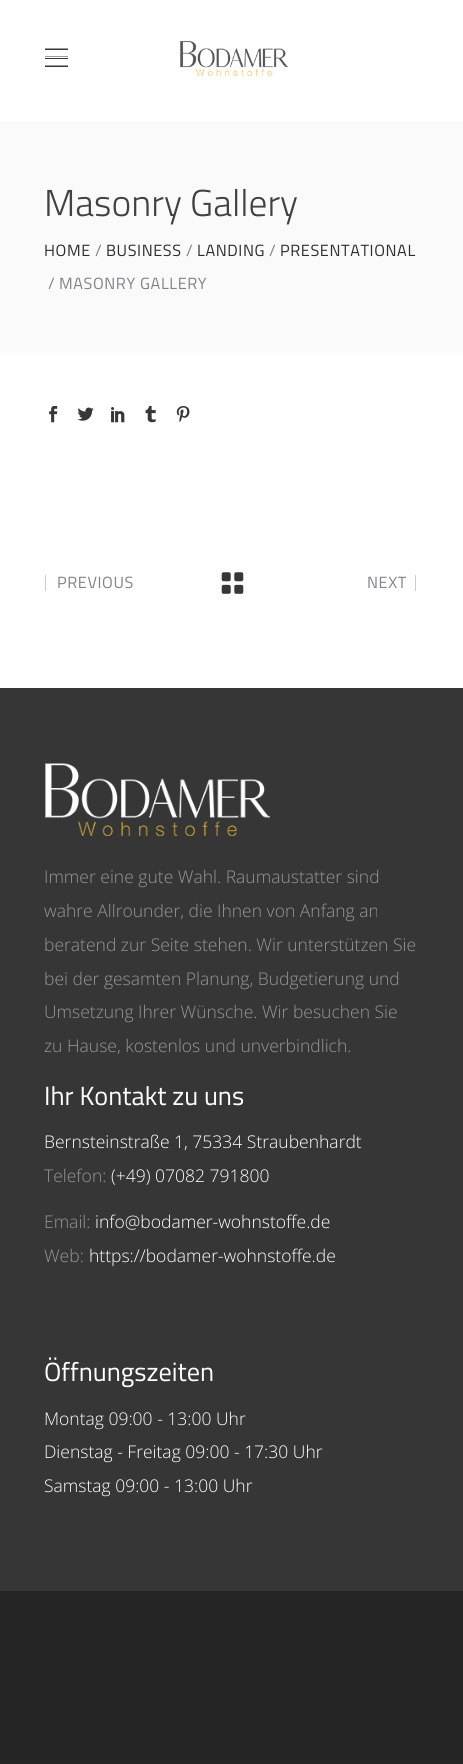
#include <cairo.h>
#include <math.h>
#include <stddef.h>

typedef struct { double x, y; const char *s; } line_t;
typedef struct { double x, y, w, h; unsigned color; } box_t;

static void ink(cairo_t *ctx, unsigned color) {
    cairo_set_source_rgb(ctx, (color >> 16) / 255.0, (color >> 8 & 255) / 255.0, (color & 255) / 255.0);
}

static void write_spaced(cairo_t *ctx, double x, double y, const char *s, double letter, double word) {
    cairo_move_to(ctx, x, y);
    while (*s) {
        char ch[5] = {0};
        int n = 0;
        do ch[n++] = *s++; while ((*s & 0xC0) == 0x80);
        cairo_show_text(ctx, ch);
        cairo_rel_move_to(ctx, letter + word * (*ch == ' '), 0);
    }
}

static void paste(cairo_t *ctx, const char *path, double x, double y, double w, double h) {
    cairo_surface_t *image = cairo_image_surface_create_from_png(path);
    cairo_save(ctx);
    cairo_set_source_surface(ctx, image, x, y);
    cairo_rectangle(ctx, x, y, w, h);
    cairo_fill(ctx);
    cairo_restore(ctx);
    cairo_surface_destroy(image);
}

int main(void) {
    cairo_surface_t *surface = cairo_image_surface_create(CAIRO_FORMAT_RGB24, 463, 1764);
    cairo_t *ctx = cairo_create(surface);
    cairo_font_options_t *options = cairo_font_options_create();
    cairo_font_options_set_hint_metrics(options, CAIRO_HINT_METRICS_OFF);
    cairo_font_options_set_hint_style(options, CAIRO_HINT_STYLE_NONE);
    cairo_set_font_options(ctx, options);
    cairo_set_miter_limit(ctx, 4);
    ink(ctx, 0xFFFFFF);
    cairo_paint(ctx);
    {
        static const box_t items[] = {
            {45, 49, 23, 1, 0x373737},
            {45, 48, 23, 1, 0x9B9B9B},
            {45, 58, 23, 1, 0x373737},
            {45, 56, 23, 1, 0x9B9B9B},
            {45, 66, 23, 1, 0x373737},
            {45, 65, 23, 1, 0x9B9B9B},
        };
        for (size_t i = 0; i < sizeof items / sizeof *items; i++) {
            ink(ctx, items[i].color);
            cairo_rectangle(ctx, items[i].x, items[i].y, items[i].w, items[i].h);
            cairo_fill(ctx);
        }
    }
    paste(ctx, "media/1.png", 180, 41, 108, 35);
    ink(ctx, 0xFAFAFA);
    cairo_rectangle(ctx, 0, 121, 463, 232);
    cairo_fill(ctx);
    cairo_select_font_face(ctx, "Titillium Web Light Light", CAIRO_FONT_SLANT_NORMAL, CAIRO_FONT_WEIGHT_NORMAL);
    cairo_set_font_size(ctx, 37.5);
    ink(ctx, 0x414042);
    cairo_move_to(ctx, 44, 216);
    cairo_show_text(ctx, "Masonry Gallery");
    cairo_select_font_face(ctx, "Titillium Web", CAIRO_FONT_SLANT_NORMAL, CAIRO_FONT_WEIGHT_NORMAL);
    cairo_set_font_size(ctx, 16.25);
    ink(ctx, 0x2D2D2D);
    write_spaced(ctx, 44, 256, "HOME", 0.6, 0);
    ink(ctx, 0x808285);
    write_spaced(ctx, 95, 256, "/", 0.6, 0);
    ink(ctx, 0x2D2D2D);
    write_spaced(ctx, 106, 256, "BUSINESS", 0.6, 0);
    ink(ctx, 0x808285);
    write_spaced(ctx, 186, 256, "/", 0.6, 0);
    ink(ctx, 0x2D2D2D);
    write_spaced(ctx, 197, 256, "LANDING", 0.6, 0);
    ink(ctx, 0x808285);
    write_spaced(ctx, 269, 256, "/", 0.6, 0);
    ink(ctx, 0x2D2D2D);
    write_spaced(ctx, 280, 256, "PRESENTATIONAL", 0.6, 0);
    ink(ctx, 0x808285);
    write_spaced(ctx, 48, 289, "/", 0.6, 0);
    write_spaced(ctx, 59, 289, "MASONRY GALLERY", 0.6, 0);
    paste(ctx, "media/2.png", 49, 406, 9, 17);
    paste(ctx, "media/3.png", 77, 407, 17, 14);
    paste(ctx, "media/4.png", 111, 407, 14, 16);
    paste(ctx, "media/5.png", 145, 406, 11, 17);
    paste(ctx, "media/6.png", 176, 406, 14, 17);
    ink(ctx, 0xCBCCCD);
    cairo_rectangle(ctx, 45, 575, 1, 16);
    cairo_fill(ctx);
    ink(ctx, 0x808285);
    write_spaced(ctx, 57, 588, "PREVIOUS", 0.6, 0);
    paste(ctx, "media/7.png", 221, 572, 23, 22);
    write_spaced(ctx, 367, 588, "NEXT", 0.6, 0);
    ink(ctx, 0xCBCCCD);
    cairo_rectangle(ctx, 415, 575, 1, 16);
    cairo_fill(ctx);
    ink(ctx, 0x363636);
    cairo_rectangle(ctx, 0, 688, 463, 903);
    cairo_fill(ctx);
    paste(ctx, "media/8.png", 45, 763, 225, 73);
    cairo_select_font_face(ctx, "Open Sans Light", CAIRO_FONT_SLANT_NORMAL, CAIRO_FONT_WEIGHT_NORMAL);
    cairo_set_font_size(ctx, 17.5);
    ink(ctx, 0x969696);
    {
        static const line_t items[] = {
            {44, 883, "Immer eine gute Wahl. Raumaustatter sind"},
            {44, 917, "wahre Allrounder, die Ihnen von Anfang an"},
            {44, 951, "beratend zur Seite stehen. Wir unterstützen Sie"},
            {44, 985, "bei der gesamten Planung, Budgetierung und"},
            {44, 1018, "Umsetzung Ihrer Wünsche. Wir besuchen Sie"},
            {44, 1052, "zu Hause, kostenlos und unverbindlich."},
        };
        for (size_t i = 0; i < sizeof items / sizeof *items; i++) {
            cairo_move_to(ctx, items[i].x, items[i].y);
            cairo_show_text(ctx, items[i].s);
        }
    }
    cairo_select_font_face(ctx, "Titillium Web", CAIRO_FONT_SLANT_NORMAL, CAIRO_FONT_WEIGHT_NORMAL);
    cairo_set_font_size(ctx, 26.25);
    ink(ctx, 0xFFFFFF);
    cairo_move_to(ctx, 44, 1105);
    cairo_show_text(ctx, "Ihr Kontakt zu uns");
    cairo_select_font_face(ctx, "Open Sans Light", CAIRO_FONT_SLANT_NORMAL, CAIRO_FONT_WEIGHT_NORMAL);
    cairo_set_font_size(ctx, 17.5);
    cairo_move_to(ctx, 44, 1148);
    cairo_show_text(ctx, "Bernsteinstraße 1, 75334 Straubenhardt");
    ink(ctx, 0x969696);
    cairo_move_to(ctx, 44, 1182);
    cairo_show_text(ctx, "Telefon:");
    ink(ctx, 0xFFFFFF);
    cairo_move_to(ctx, 111, 1182);
    cairo_show_text(ctx, "(+49) 07082 791800");
    ink(ctx, 0x969696);
    cairo_move_to(ctx, 44, 1228);
    cairo_show_text(ctx, "Email:");
    ink(ctx, 0xFFFFFF);
    cairo_move_to(ctx, 95, 1228);
    cairo_show_text(ctx, "info@bodamer-wohnstoffe.de");
    ink(ctx, 0x969696);
    cairo_move_to(ctx, 44, 1262);
    cairo_show_text(ctx, "Web:");
    ink(ctx, 0xFFFFFF);
    cairo_move_to(ctx, 89, 1262);
    cairo_show_text(ctx, "https://bodamer-wohnstoffe.de");
    cairo_select_font_face(ctx, "Titillium Web", CAIRO_FONT_SLANT_NORMAL, CAIRO_FONT_WEIGHT_NORMAL);
    cairo_set_font_size(ctx, 26.25);
    cairo_move_to(ctx, 44, 1381);
    cairo_show_text(ctx, "Öffnungszeiten");
    cairo_select_font_face(ctx, "Open Sans Light", CAIRO_FONT_SLANT_NORMAL, CAIRO_FONT_WEIGHT_NORMAL);
    cairo_set_font_size(ctx, 17.5);
    {
        static const line_t items[] = {
            {44, 1425, "Montag 09:00 - 13:00 Uhr"},
            {44, 1458, "Dienstag - Freitag 09:00 - 17:30 Uhr"},
            {44, 1492, "Samstag 09:00 - 13:00 Uhr"},
        };
        for (size_t i = 0; i < sizeof items / sizeof *items; i++) {
            cairo_move_to(ctx, items[i].x, items[i].y);
            cairo_show_text(ctx, items[i].s);
        }
    }
    ink(ctx, 0x252525);
    cairo_rectangle(ctx, 0, 1591, 463, 173);
    cairo_fill(ctx);
    cairo_surface_write_to_png(surface, "image.png");
    cairo_font_options_destroy(options);
    cairo_destroy(ctx);
    cairo_surface_destroy(surface);
    return 0;
}
